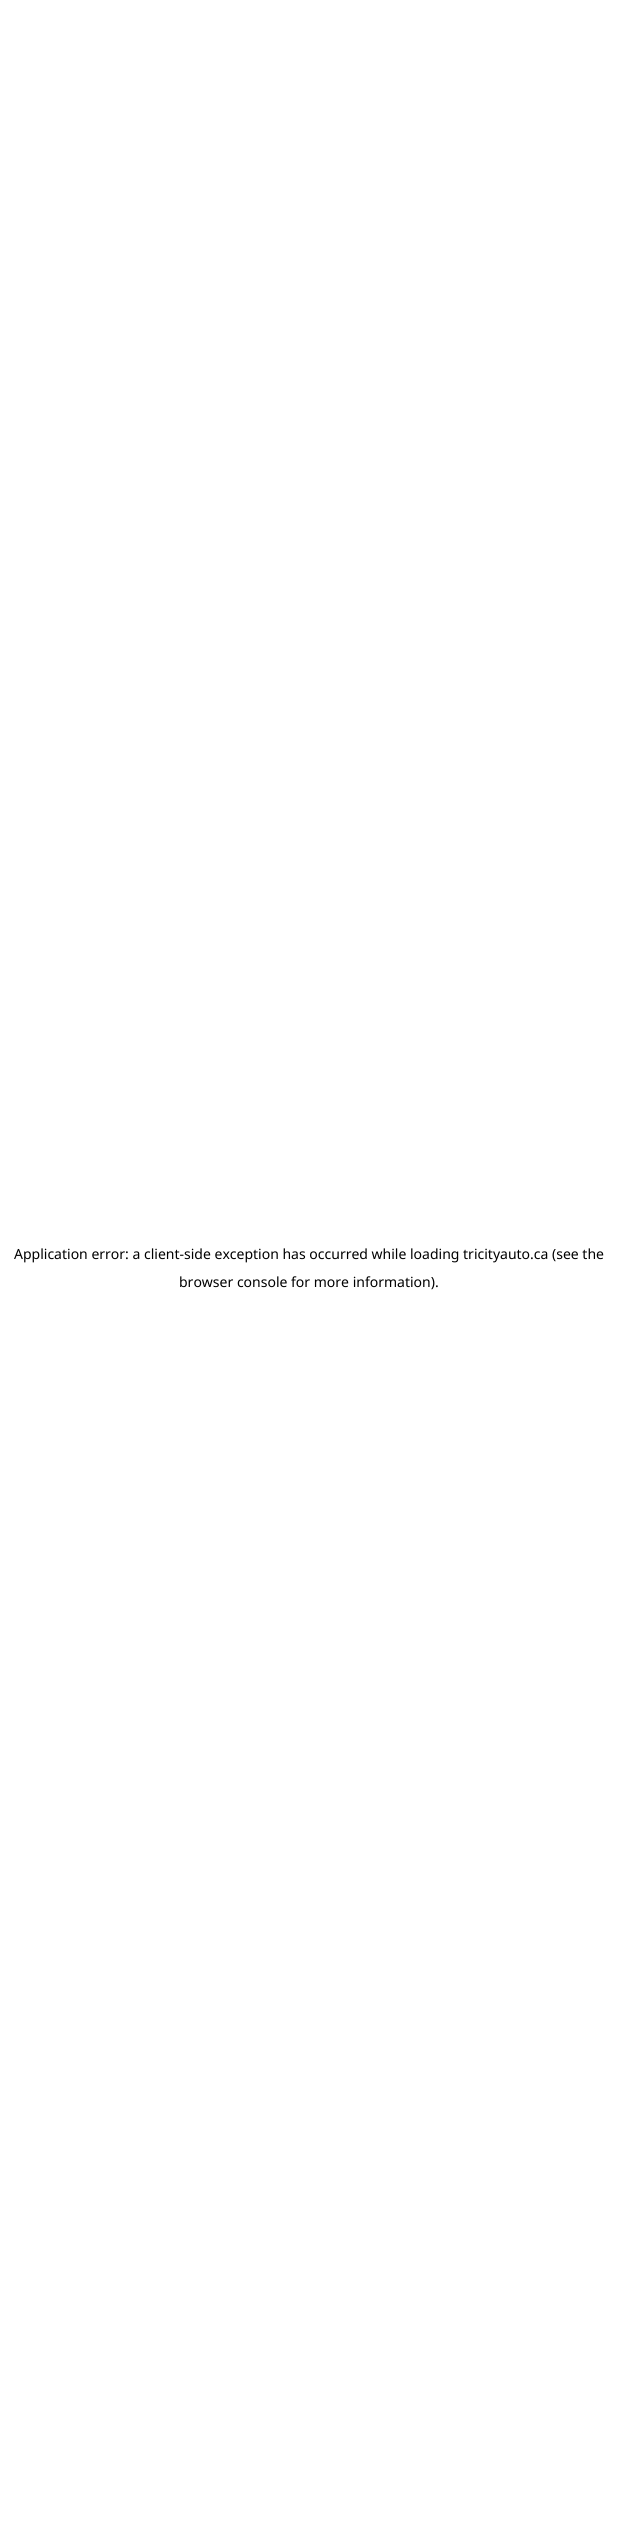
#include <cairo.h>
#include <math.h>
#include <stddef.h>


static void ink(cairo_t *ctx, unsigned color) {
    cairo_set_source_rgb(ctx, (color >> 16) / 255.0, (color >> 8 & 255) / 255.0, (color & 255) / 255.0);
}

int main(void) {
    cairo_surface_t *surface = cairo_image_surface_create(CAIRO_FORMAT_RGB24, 618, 2536);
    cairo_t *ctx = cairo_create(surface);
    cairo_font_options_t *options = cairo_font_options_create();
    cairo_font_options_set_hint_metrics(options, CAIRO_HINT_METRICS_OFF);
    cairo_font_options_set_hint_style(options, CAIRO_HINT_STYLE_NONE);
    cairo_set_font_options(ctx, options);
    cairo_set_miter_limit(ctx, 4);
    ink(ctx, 0xFFFFFF);
    cairo_paint(ctx);
    cairo_select_font_face(ctx, "Noto Sans", CAIRO_FONT_SLANT_NORMAL, CAIRO_FONT_WEIGHT_NORMAL);
    cairo_set_font_size(ctx, 14);
    ink(ctx, 0x000000);
    cairo_move_to(ctx, 14, 1259);
    cairo_show_text(ctx, "Application error: a client-side exception has occurred while loading tricityauto.ca (see the");
    cairo_move_to(ctx, 179, 1287);
    cairo_show_text(ctx, "browser console for more information).");
    cairo_surface_write_to_png(surface, "image.png");
    cairo_font_options_destroy(options);
    cairo_destroy(ctx);
    cairo_surface_destroy(surface);
    return 0;
}
